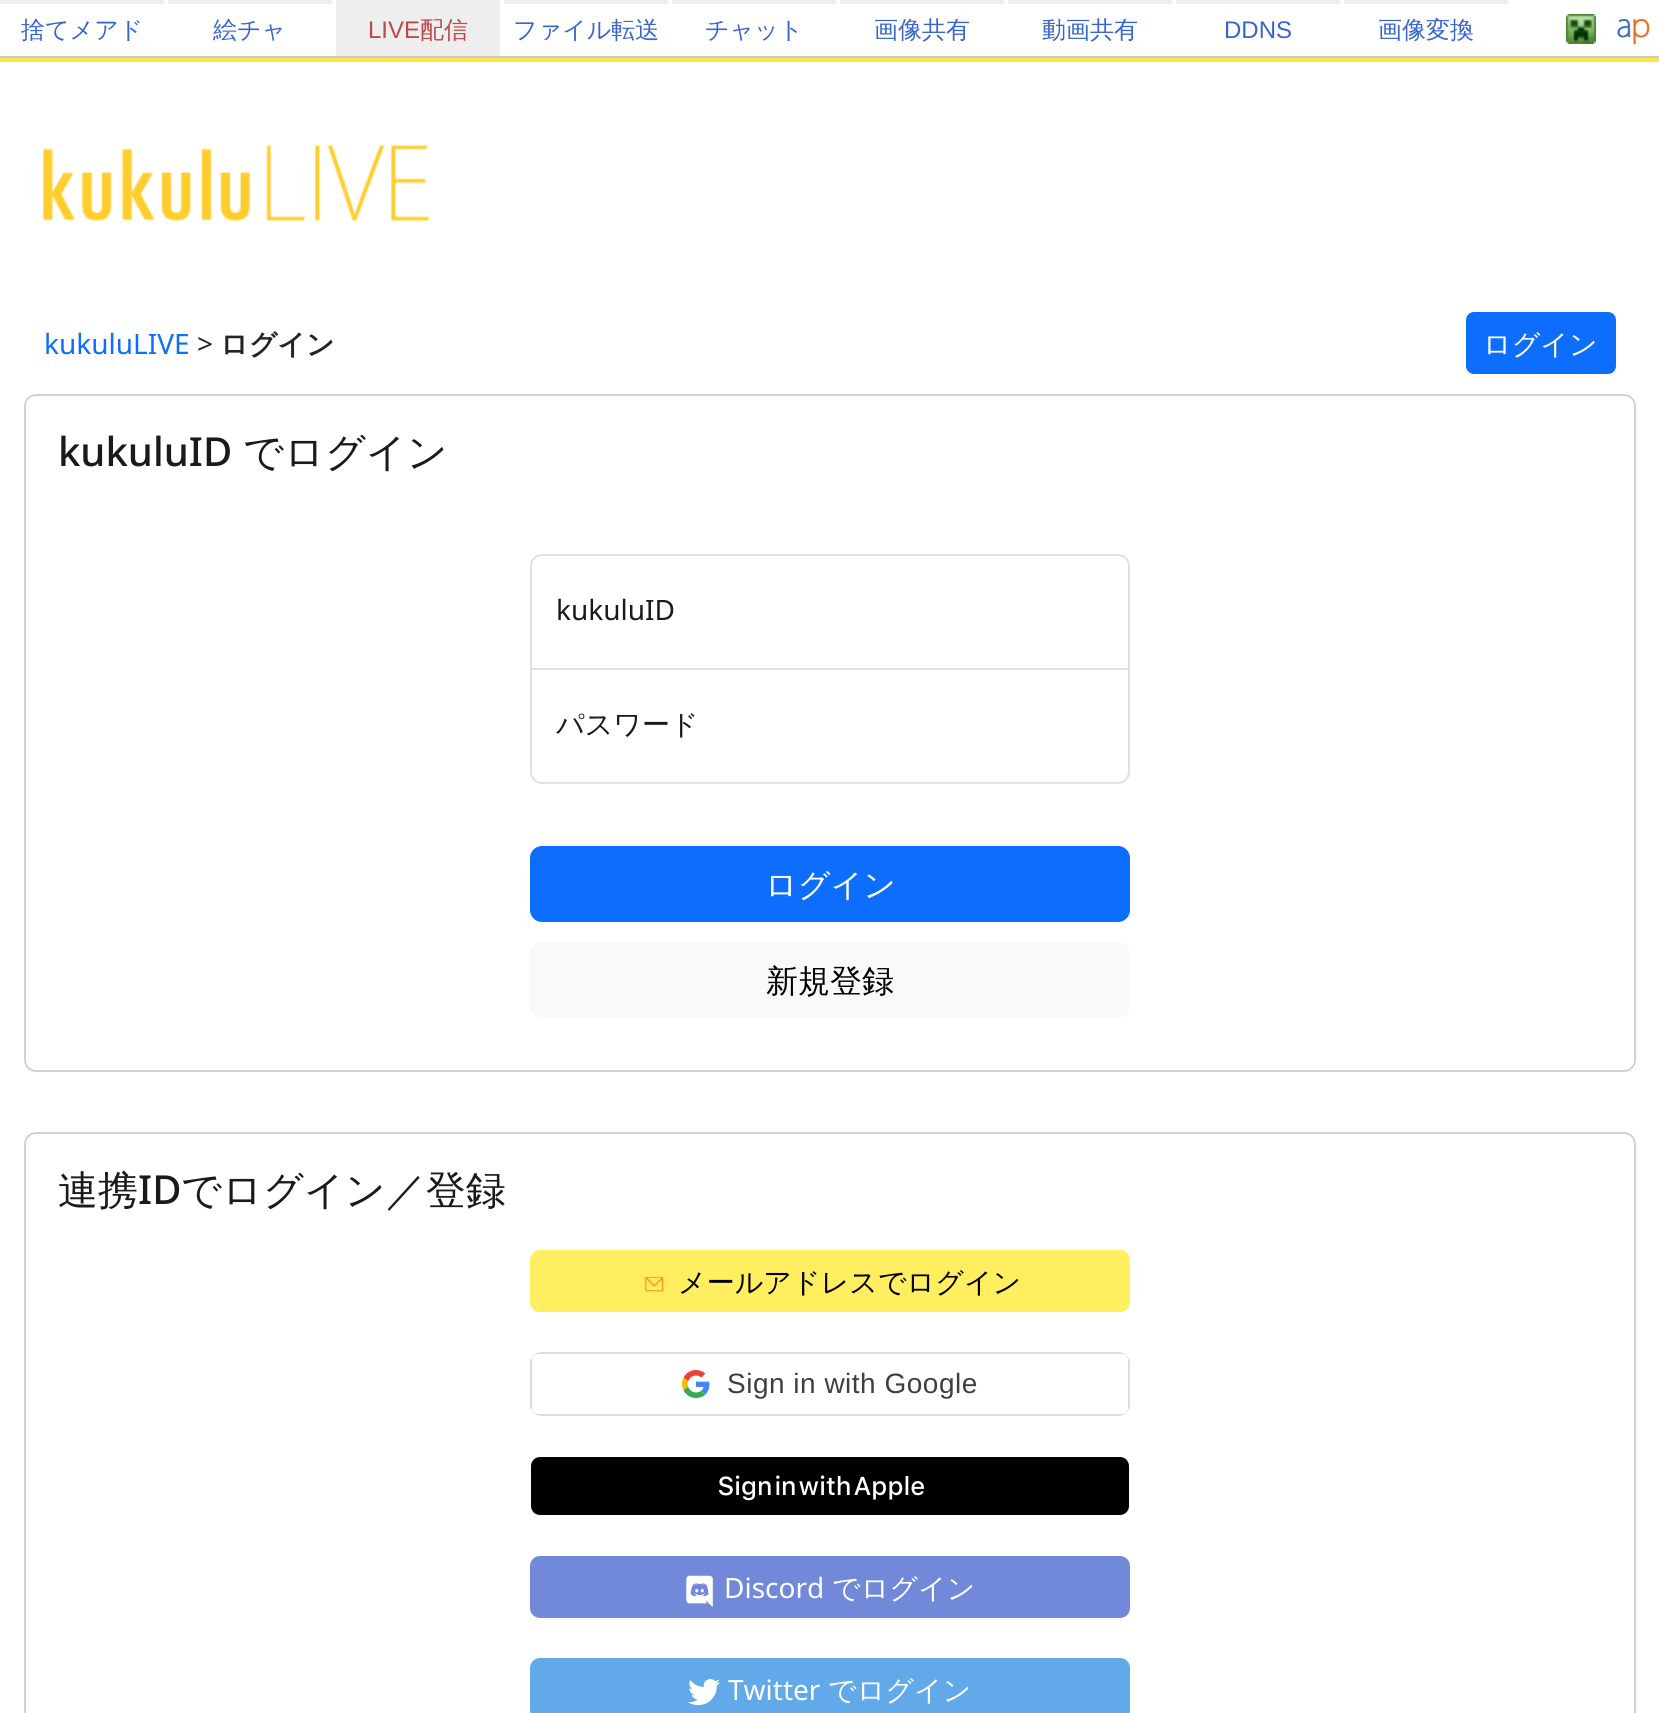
#include <cairo.h>
#include <math.h>
#include <stddef.h>


static void ink(cairo_t *ctx, unsigned color) {
    cairo_set_source_rgb(ctx, (color >> 16) / 255.0, (color >> 8 & 255) / 255.0, (color & 255) / 255.0);
}

static void write_spaced(cairo_t *ctx, double x, double y, const char *s, double letter, double word) {
    cairo_move_to(ctx, x, y);
    while (*s) {
        char ch[5] = {0};
        int n = 0;
        do ch[n++] = *s++; while ((*s & 0xC0) == 0x80);
        cairo_show_text(ctx, ch);
        cairo_rel_move_to(ctx, letter + word * (*ch == ' '), 0);
    }
}

static void round_path(cairo_t *ctx, double x, double y, double w, double h, double r) {
    cairo_new_sub_path(ctx);
    cairo_arc(ctx, x + w - r, y + h - r, r, 0, M_PI / 2);
    cairo_arc(ctx, x + r, y + h - r, r, M_PI / 2, M_PI);
    cairo_arc(ctx, x + r, y + r, r, M_PI, 1.5 * M_PI);
    cairo_arc(ctx, x + w - r, y + r, r, 1.5 * M_PI, 2 * M_PI);
    cairo_close_path(ctx);
}

static void paste(cairo_t *ctx, const char *path, double x, double y, double w, double h) {
    cairo_surface_t *image = cairo_image_surface_create_from_png(path);
    cairo_save(ctx);
    cairo_set_source_surface(ctx, image, x, y);
    cairo_rectangle(ctx, x, y, w, h);
    cairo_fill(ctx);
    cairo_restore(ctx);
    cairo_surface_destroy(image);
}

int main(void) {
    cairo_surface_t *surface = cairo_image_surface_create(CAIRO_FORMAT_RGB24, 1659, 1713);
    cairo_t *ctx = cairo_create(surface);
    cairo_font_options_t *options = cairo_font_options_create();
    cairo_font_options_set_hint_metrics(options, CAIRO_HINT_METRICS_OFF);
    cairo_font_options_set_hint_style(options, CAIRO_HINT_STYLE_NONE);
    cairo_set_font_options(ctx, options);
    cairo_set_miter_limit(ctx, 4);
    ink(ctx, 0xFFFFFF);
    cairo_paint(ctx);
    ink(ctx, 0xCCCCCC);
    cairo_rectangle(ctx, 0, 56, 1659, 2);
    cairo_fill(ctx);
    ink(ctx, 0xEEEEEE);
    cairo_rectangle(ctx, 0, 0, 164, 4);
    cairo_fill(ctx);
    cairo_select_font_face(ctx, "WenQuanYi Zen Hei Medium", CAIRO_FONT_SLANT_NORMAL, CAIRO_FONT_WEIGHT_NORMAL);
    cairo_set_font_size(ctx, 24);
    ink(ctx, 0x3765CE);
    cairo_move_to(ctx, 21, 38);
    cairo_show_text(ctx, "捨てメアド");
    ink(ctx, 0xEEEEEE);
    cairo_rectangle(ctx, 168, 0, 164, 4);
    cairo_fill(ctx);
    ink(ctx, 0x3765CE);
    cairo_move_to(ctx, 213, 38);
    cairo_show_text(ctx, "絵チャ");
    ink(ctx, 0xEEEEEE);
    cairo_rectangle(ctx, 336, 0, 164, 56);
    cairo_fill(ctx);
    cairo_select_font_face(ctx, "Liberation Sans", CAIRO_FONT_SLANT_NORMAL, CAIRO_FONT_WEIGHT_NORMAL);
    ink(ctx, 0xBD484B);
    cairo_move_to(ctx, 368, 38);
    cairo_show_text(ctx, "LIVE");
    cairo_select_font_face(ctx, "WenQuanYi Zen Hei Medium", CAIRO_FONT_SLANT_NORMAL, CAIRO_FONT_WEIGHT_NORMAL);
    cairo_move_to(ctx, 420, 38);
    cairo_show_text(ctx, "配信");
    ink(ctx, 0xEEEEEE);
    cairo_rectangle(ctx, 504, 0, 164, 4);
    cairo_fill(ctx);
    ink(ctx, 0x3765CE);
    cairo_move_to(ctx, 513, 38);
    cairo_show_text(ctx, "ファイル転送");
    ink(ctx, 0xEEEEEE);
    cairo_rectangle(ctx, 672, 0, 164, 4);
    cairo_fill(ctx);
    ink(ctx, 0x3765CE);
    cairo_move_to(ctx, 705, 38);
    cairo_show_text(ctx, "チャット");
    ink(ctx, 0xEEEEEE);
    cairo_rectangle(ctx, 840, 0, 164, 4);
    cairo_fill(ctx);
    ink(ctx, 0x3765CE);
    cairo_move_to(ctx, 874, 38);
    cairo_show_text(ctx, "画像共有");
    ink(ctx, 0xEEEEEE);
    cairo_rectangle(ctx, 1008, 0, 164, 4);
    cairo_fill(ctx);
    ink(ctx, 0x3765CE);
    cairo_move_to(ctx, 1042, 38);
    cairo_show_text(ctx, "動画共有");
    ink(ctx, 0xEEEEEE);
    cairo_rectangle(ctx, 1176, 0, 164, 4);
    cairo_fill(ctx);
    cairo_select_font_face(ctx, "Liberation Sans", CAIRO_FONT_SLANT_NORMAL, CAIRO_FONT_WEIGHT_NORMAL);
    ink(ctx, 0x3765CE);
    cairo_move_to(ctx, 1224, 38);
    cairo_show_text(ctx, "DDNS");
    ink(ctx, 0xEEEEEE);
    cairo_rectangle(ctx, 1344, 0, 164, 4);
    cairo_fill(ctx);
    cairo_select_font_face(ctx, "WenQuanYi Zen Hei Medium", CAIRO_FONT_SLANT_NORMAL, CAIRO_FONT_WEIGHT_NORMAL);
    ink(ctx, 0x3765CE);
    cairo_move_to(ctx, 1378, 38);
    cairo_show_text(ctx, "画像変換");
    paste(ctx, "media/1.png", 1566, 14, 30, 30);
    paste(ctx, "media/2.png", 1617, 19, 33, 26);
    ink(ctx, 0xFFE73F);
    cairo_rectangle(ctx, 0, 58, 1659, 4);
    cairo_fill(ctx);
    paste(ctx, "media/3.png", 43, 144, 386, 77);
    cairo_select_font_face(ctx, "Noto Sans", CAIRO_FONT_SLANT_NORMAL, CAIRO_FONT_WEIGHT_NORMAL);
    cairo_set_font_size(ctx, 28);
    ink(ctx, 0x0D6EFD);
    cairo_move_to(ctx, 44, 354);
    cairo_show_text(ctx, "kukuluLIVE");
    ink(ctx, 0x212529);
    cairo_move_to(ctx, 197, 354);
    cairo_show_text(ctx, ">");
    cairo_select_font_face(ctx, "WenQuanYi Zen Hei", CAIRO_FONT_SLANT_NORMAL, CAIRO_FONT_WEIGHT_BOLD);
    cairo_move_to(ctx, 220, 354);
    cairo_show_text(ctx, "ログイン");
    ink(ctx, 0x0D6EFD);
    round_path(ctx, 1467, 313, 148, 60, 7);
    cairo_fill_preserve(ctx);
    cairo_stroke(ctx);
    cairo_select_font_face(ctx, "WenQuanYi Zen Hei Medium", CAIRO_FONT_SLANT_NORMAL, CAIRO_FONT_WEIGHT_NORMAL);
    ink(ctx, 0xFFFFFF);
    cairo_move_to(ctx, 1483, 354);
    cairo_show_text(ctx, "ログイン");
    round_path(ctx, 25, 395, 1610, 676, 11);
    ink(ctx, 0xD2D2D2);
    cairo_stroke(ctx);
    cairo_select_font_face(ctx, "Noto Sans Medium", CAIRO_FONT_SLANT_NORMAL, CAIRO_FONT_WEIGHT_NORMAL);
    cairo_set_font_size(ctx, 40);
    ink(ctx, 0x1A1A1A);
    cairo_move_to(ctx, 58, 466);
    cairo_show_text(ctx, "kukuluID");
    cairo_select_font_face(ctx, "WenQuanYi Zen Hei Medium", CAIRO_FONT_SLANT_NORMAL, CAIRO_FONT_WEIGHT_NORMAL);
    cairo_move_to(ctx, 243, 466);
    cairo_show_text(ctx, "でログイン");
    cairo_new_path(ctx);
    cairo_move_to(ctx, 542, 555);
    cairo_line_to(ctx, 1118, 555);
    cairo_curve_to(ctx, 1124, 555, 1129, 560, 1129, 566);
    cairo_line_to(ctx, 1129, 669);
    cairo_line_to(ctx, 531, 669);
    cairo_line_to(ctx, 531, 566);
    cairo_curve_to(ctx, 531, 560, 536, 555, 542, 555);
    cairo_close_path(ctx);
    ink(ctx, 0xDEE2E6);
    cairo_stroke(ctx);
    cairo_select_font_face(ctx, "Noto Sans", CAIRO_FONT_SLANT_NORMAL, CAIRO_FONT_WEIGHT_NORMAL);
    cairo_set_font_size(ctx, 28);
    ink(ctx, 0x1A1A1A);
    cairo_move_to(ctx, 556, 620);
    cairo_show_text(ctx, "kukuluID");
    cairo_new_path(ctx);
    cairo_move_to(ctx, 531, 669);
    cairo_line_to(ctx, 1129, 669);
    cairo_line_to(ctx, 1129, 772);
    cairo_curve_to(ctx, 1129, 778, 1124, 783, 1118, 783);
    cairo_line_to(ctx, 542, 783);
    cairo_curve_to(ctx, 536, 783, 531, 778, 531, 772);
    cairo_close_path(ctx);
    ink(ctx, 0xDEE2E6);
    cairo_stroke(ctx);
    cairo_select_font_face(ctx, "WenQuanYi Zen Hei Medium", CAIRO_FONT_SLANT_NORMAL, CAIRO_FONT_WEIGHT_NORMAL);
    ink(ctx, 0x1A1A1A);
    cairo_move_to(ctx, 556, 734);
    cairo_show_text(ctx, "パスワード");
    ink(ctx, 0x0D6EFD);
    round_path(ctx, 531, 847, 598, 74, 11);
    cairo_fill_preserve(ctx);
    cairo_stroke(ctx);
    cairo_set_font_size(ctx, 32);
    ink(ctx, 0xFFFFFF);
    cairo_move_to(ctx, 765, 896);
    cairo_show_text(ctx, "ログイン");
    ink(ctx, 0xF8F9FA);
    round_path(ctx, 530, 942, 600, 76, 12);
    cairo_fill(ctx);
    ink(ctx, 0x000000);
    cairo_move_to(ctx, 766, 992);
    cairo_show_text(ctx, "新規登録");
    round_path(ctx, 25, 1133, 1610, 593, 11);
    ink(ctx, 0xD2D2D2);
    cairo_stroke(ctx);
    cairo_set_font_size(ctx, 40);
    ink(ctx, 0x1A1A1A);
    cairo_move_to(ctx, 58, 1204);
    cairo_show_text(ctx, "連携");
    cairo_select_font_face(ctx, "Noto Sans Medium", CAIRO_FONT_SLANT_NORMAL, CAIRO_FONT_WEIGHT_NORMAL);
    cairo_move_to(ctx, 138, 1204);
    cairo_show_text(ctx, "ID");
    cairo_select_font_face(ctx, "WenQuanYi Zen Hei Medium", CAIRO_FONT_SLANT_NORMAL, CAIRO_FONT_WEIGHT_NORMAL);
    cairo_move_to(ctx, 181, 1204);
    cairo_show_text(ctx, "でログイン／登録");
    ink(ctx, 0xFFEE5F);
    round_path(ctx, 530, 1250, 600, 62, 10);
    cairo_fill(ctx);
    paste(ctx, "media/4.png", 644, 1276, 20, 16);
    cairo_set_font_size(ctx, 28);
    ink(ctx, 0x000000);
    cairo_move_to(ctx, 678, 1292);
    cairo_show_text(ctx, "メールアドレスでログイン");
    ink(ctx, 0xDADCE0);
    cairo_set_fill_rule(ctx, CAIRO_FILL_RULE_EVEN_ODD);
    cairo_new_path(ctx);
    cairo_move_to(ctx, 542, 1352);
    cairo_curve_to(ctx, 535, 1352, 530, 1357, 530, 1364);
    cairo_line_to(ctx, 530, 1404);
    cairo_curve_to(ctx, 530, 1411, 535, 1416, 542, 1416);
    cairo_line_to(ctx, 1118, 1416);
    cairo_curve_to(ctx, 1125, 1416, 1130, 1411, 1130, 1404);
    cairo_line_to(ctx, 1130, 1364);
    cairo_curve_to(ctx, 1130, 1357, 1125, 1352, 1118, 1352);
    cairo_close_path(ctx);
    cairo_move_to(ctx, 538, 1354);
    cairo_curve_to(ctx, 535, 1354, 532, 1357, 532, 1360);
    cairo_line_to(ctx, 532, 1408);
    cairo_curve_to(ctx, 532, 1411, 535, 1414, 538, 1414);
    cairo_line_to(ctx, 1122, 1414);
    cairo_curve_to(ctx, 1125, 1414, 1128, 1411, 1128, 1408);
    cairo_line_to(ctx, 1128, 1360);
    cairo_curve_to(ctx, 1128, 1357, 1125, 1354, 1122, 1354);
    cairo_close_path(ctx);
    cairo_fill(ctx);
    paste(ctx, "media/5.png", 682, 1370, 28, 28);
    cairo_select_font_face(ctx, "Liberation Sans", CAIRO_FONT_SLANT_NORMAL, CAIRO_FONT_WEIGHT_NORMAL);
    ink(ctx, 0x3C4043);
    write_spaced(ctx, 727, 1393, "Sign in with Google", 0.5, 0);
    ink(ctx, 0x000000);
    round_path(ctx, 532, 1458, 596, 56, 8);
    cairo_fill_preserve(ctx);
    cairo_stroke(ctx);
    cairo_select_font_face(ctx, "SF Pro Text Medium", CAIRO_FONT_SLANT_NORMAL, CAIRO_FONT_WEIGHT_NORMAL);
    cairo_set_font_size(ctx, 25.75);
    ink(ctx, 0xFFFFFF);
    write_spaced(ctx, 711, 1495, " Sign in with Apple", 0, -5);
    ink(ctx, 0x7289DA);
    round_path(ctx, 530, 1556, 600, 62, 10);
    cairo_fill(ctx);
    paste(ctx, "media/6.png", 686, 1575, 28, 32);
    cairo_select_font_face(ctx, "Noto Sans", CAIRO_FONT_SLANT_NORMAL, CAIRO_FONT_WEIGHT_NORMAL);
    cairo_set_font_size(ctx, 28);
    ink(ctx, 0xFFFFFF);
    cairo_move_to(ctx, 724, 1598);
    cairo_show_text(ctx, "Discord");
    cairo_select_font_face(ctx, "WenQuanYi Zen Hei Medium", CAIRO_FONT_SLANT_NORMAL, CAIRO_FONT_WEIGHT_NORMAL);
    cairo_move_to(ctx, 832, 1598);
    cairo_show_text(ctx, "でログイン");
    ink(ctx, 0x62A9EA);
    round_path(ctx, 530, 1658, 600, 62, 10);
    cairo_fill(ctx);
    paste(ctx, "media/7.png", 688, 1679, 32, 26);
    cairo_select_font_face(ctx, "Noto Sans", CAIRO_FONT_SLANT_NORMAL, CAIRO_FONT_WEIGHT_NORMAL);
    ink(ctx, 0xFFFFFF);
    cairo_move_to(ctx, 728, 1700);
    cairo_show_text(ctx, "Twitter");
    cairo_select_font_face(ctx, "WenQuanYi Zen Hei Medium", CAIRO_FONT_SLANT_NORMAL, CAIRO_FONT_WEIGHT_NORMAL);
    cairo_move_to(ctx, 828, 1700);
    cairo_show_text(ctx, "でログイン");
    cairo_surface_write_to_png(surface, "image.png");
    cairo_font_options_destroy(options);
    cairo_destroy(ctx);
    cairo_surface_destroy(surface);
    return 0;
}
